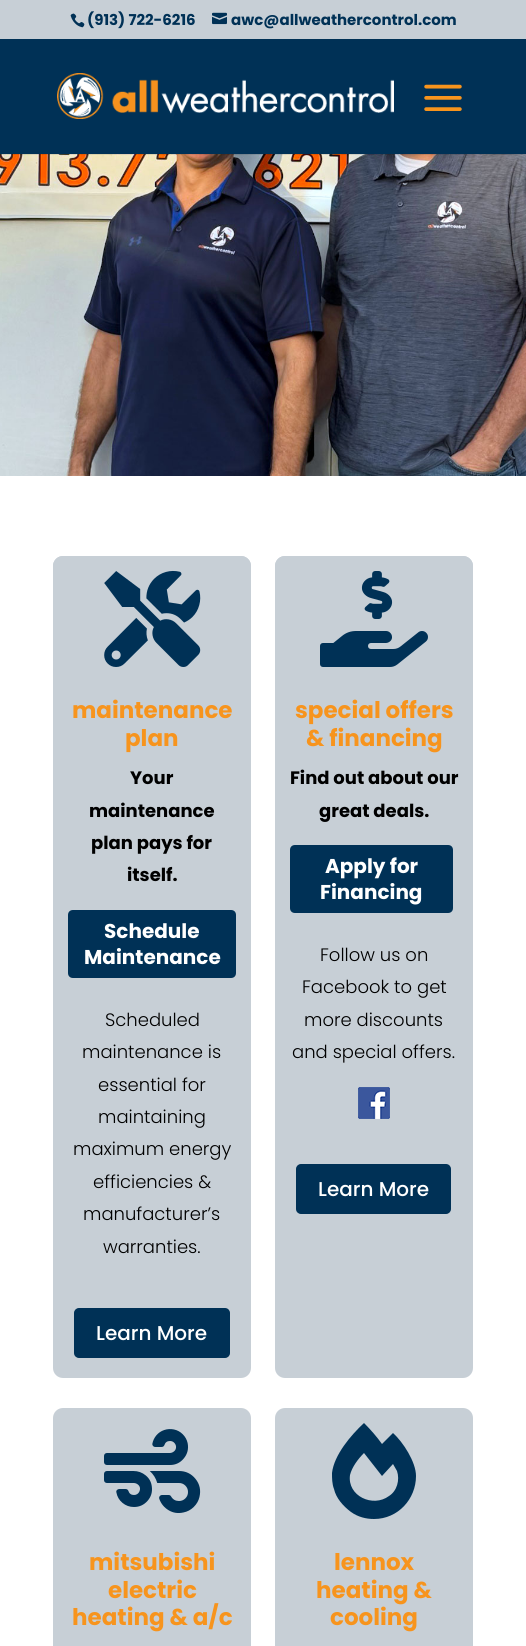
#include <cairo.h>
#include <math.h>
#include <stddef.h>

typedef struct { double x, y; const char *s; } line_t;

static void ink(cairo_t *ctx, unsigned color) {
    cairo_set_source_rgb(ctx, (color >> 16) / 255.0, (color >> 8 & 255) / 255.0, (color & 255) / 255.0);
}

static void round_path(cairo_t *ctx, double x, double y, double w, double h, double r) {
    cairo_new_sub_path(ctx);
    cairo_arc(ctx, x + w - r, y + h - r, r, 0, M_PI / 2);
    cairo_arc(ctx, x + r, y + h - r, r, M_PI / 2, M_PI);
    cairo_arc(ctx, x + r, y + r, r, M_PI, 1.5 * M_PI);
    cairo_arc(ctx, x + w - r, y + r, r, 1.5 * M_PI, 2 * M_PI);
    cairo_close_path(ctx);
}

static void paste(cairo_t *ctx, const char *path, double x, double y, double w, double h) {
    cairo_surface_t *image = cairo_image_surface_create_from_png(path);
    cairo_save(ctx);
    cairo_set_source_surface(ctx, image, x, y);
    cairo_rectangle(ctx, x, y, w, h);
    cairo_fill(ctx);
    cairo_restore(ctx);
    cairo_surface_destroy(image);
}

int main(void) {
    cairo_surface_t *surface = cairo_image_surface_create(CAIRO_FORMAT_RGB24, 526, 1646);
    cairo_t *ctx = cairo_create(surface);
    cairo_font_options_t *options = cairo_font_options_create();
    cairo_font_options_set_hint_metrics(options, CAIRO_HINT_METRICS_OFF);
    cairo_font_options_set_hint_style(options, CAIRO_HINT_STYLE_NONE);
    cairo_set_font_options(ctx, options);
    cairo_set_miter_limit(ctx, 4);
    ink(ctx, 0xFFFFFF);
    cairo_paint(ctx);
    ink(ctx, 0xC7CFD6);
    cairo_rectangle(ctx, 0, 0, 526, 39);
    cairo_fill(ctx);
    paste(ctx, "media/1.png", 70, 13, 15, 15);
    cairo_select_font_face(ctx, "Poppins", CAIRO_FONT_SLANT_NORMAL, CAIRO_FONT_WEIGHT_BOLD);
    cairo_set_font_size(ctx, 15);
    ink(ctx, 0x003156);
    cairo_move_to(ctx, 87, 25);
    cairo_show_text(ctx, "(913) 722-6216");
    paste(ctx, "media/2.png", 212, 12, 15, 13);
    cairo_move_to(ctx, 231, 25);
    cairo_show_text(ctx, "awc@allweathercontrol.com");
    paste(ctx, "media/5.png", 0, 154, 526, 322);
    cairo_set_source_rgba(ctx, 0, 0, 0, 0.1);
    cairo_rectangle(ctx, 0, 154, 526, 1);
    cairo_fill(ctx);
    ink(ctx, 0x003156);
    cairo_rectangle(ctx, 0, 39, 526, 115);
    cairo_fill(ctx);
    paste(ctx, "media/3.png", 57, 73, 337, 46);
    paste(ctx, "media/4.png", 424, 84, 38, 27);
    ink(ctx, 0xC7CFD6);
    round_path(ctx, 53, 556, 198, 822, 10);
    cairo_fill(ctx);
    round_path(ctx, 53, 556, 198, 722, 10);
    cairo_fill(ctx);
    paste(ctx, "media/6.png", 104, 570, 97, 97);
    cairo_set_font_size(ctx, 23);
    ink(ctx, 0xF7941D);
    cairo_move_to(ctx, 72, 718);
    cairo_show_text(ctx, "maintenance");
    cairo_move_to(ctx, 125, 746);
    cairo_show_text(ctx, "plan");
    cairo_set_font_size(ctx, 18);
    ink(ctx, 0x000000);
    {
        static const line_t items[] = {
            {130, 784, "Your"},
            {89, 817, "maintenance"},
            {91, 849, "plan pays for"},
            {127, 881, "itself."},
        };
        for (size_t i = 0; i < sizeof items / sizeof *items; i++) {
            cairo_move_to(ctx, items[i].x, items[i].y);
            cairo_show_text(ctx, items[i].s);
        }
    }
    ink(ctx, 0x003156);
    cairo_new_path(ctx);
    cairo_move_to(ctx, 73, 910);
    cairo_line_to(ctx, 231, 910);
    cairo_curve_to(ctx, 234, 910, 236, 912, 236, 915);
    cairo_line_to(ctx, 236, 973);
    cairo_curve_to(ctx, 236, 976, 234, 978, 231, 978);
    cairo_line_to(ctx, 73, 978);
    cairo_curve_to(ctx, 70, 978, 68, 976, 68, 973);
    cairo_line_to(ctx, 68, 915);
    cairo_curve_to(ctx, 68, 912, 70, 910, 73, 910);
    cairo_close_path(ctx);
    cairo_fill(ctx);
    cairo_set_font_size(ctx, 20);
    ink(ctx, 0xFFFFFF);
    cairo_move_to(ctx, 104, 938);
    cairo_show_text(ctx, "Schedule");
    cairo_move_to(ctx, 84, 964);
    cairo_show_text(ctx, "Maintenance");
    cairo_select_font_face(ctx, "Poppins Light", CAIRO_FONT_SLANT_NORMAL, CAIRO_FONT_WEIGHT_NORMAL);
    cairo_set_font_size(ctx, 18);
    ink(ctx, 0x000000);
    {
        static const line_t items[] = {
            {105, 1026, "Scheduled"},
            {82, 1058, "maintenance is"},
            {98, 1091, "essential for"},
            {98, 1123, "maintaining"},
            {73, 1155, "maximum energy"},
            {93, 1188, "efficiencies &"},
            {83, 1220, "manufacturer’s"},
            {103, 1253, "warranties."},
        };
        for (size_t i = 0; i < sizeof items / sizeof *items; i++) {
            cairo_move_to(ctx, items[i].x, items[i].y);
            cairo_show_text(ctx, items[i].s);
        }
    }
    ink(ctx, 0x003156);
    round_path(ctx, 75, 1309, 154, 48, 4);
    cairo_fill_preserve(ctx);
    cairo_stroke(ctx);
    cairo_select_font_face(ctx, "Poppins Medium", CAIRO_FONT_SLANT_NORMAL, CAIRO_FONT_WEIGHT_NORMAL);
    cairo_set_font_size(ctx, 20);
    ink(ctx, 0xFFFFFF);
    cairo_move_to(ctx, 96, 1340);
    cairo_show_text(ctx, "Learn More");
    ink(ctx, 0xC7CFD6);
    round_path(ctx, 275, 556, 198, 822, 10);
    cairo_fill(ctx);
    round_path(ctx, 275, 556, 198, 578, 10);
    cairo_fill(ctx);
    paste(ctx, "media/7.png", 320, 571, 108, 96);
    cairo_select_font_face(ctx, "Poppins", CAIRO_FONT_SLANT_NORMAL, CAIRO_FONT_WEIGHT_BOLD);
    cairo_set_font_size(ctx, 23);
    ink(ctx, 0xF7941D);
    cairo_move_to(ctx, 295, 718);
    cairo_show_text(ctx, "special offers");
    cairo_move_to(ctx, 306, 746);
    cairo_show_text(ctx, "& financing");
    cairo_set_font_size(ctx, 18);
    ink(ctx, 0x000000);
    cairo_move_to(ctx, 290, 784);
    cairo_show_text(ctx, "Find out about our");
    cairo_move_to(ctx, 319, 817);
    cairo_show_text(ctx, "great deals.");
    ink(ctx, 0x003156);
    cairo_new_path(ctx);
    cairo_move_to(ctx, 295, 845);
    cairo_line_to(ctx, 448, 845);
    cairo_curve_to(ctx, 451, 845, 453, 847, 453, 850);
    cairo_line_to(ctx, 453, 908);
    cairo_curve_to(ctx, 453, 911, 451, 913, 448, 913);
    cairo_line_to(ctx, 295, 913);
    cairo_curve_to(ctx, 292, 913, 290, 911, 290, 908);
    cairo_line_to(ctx, 290, 850);
    cairo_curve_to(ctx, 290, 847, 292, 845, 295, 845);
    cairo_close_path(ctx);
    cairo_fill(ctx);
    cairo_set_font_size(ctx, 20);
    ink(ctx, 0xFFFFFF);
    cairo_move_to(ctx, 325, 873);
    cairo_show_text(ctx, "Apply for");
    cairo_move_to(ctx, 320, 899);
    cairo_show_text(ctx, "Financing");
    cairo_select_font_face(ctx, "Poppins Light", CAIRO_FONT_SLANT_NORMAL, CAIRO_FONT_WEIGHT_NORMAL);
    cairo_set_font_size(ctx, 18);
    ink(ctx, 0x000000);
    {
        static const line_t items[] = {
            {320, 961, "Follow us on"},
            {302, 993, "Facebook to get"},
            {304, 1026, "more discounts"},
            {292, 1058, "and special offers."},
        };
        for (size_t i = 0; i < sizeof items / sizeof *items; i++) {
            cairo_move_to(ctx, items[i].x, items[i].y);
            cairo_show_text(ctx, items[i].s);
        }
    }
    paste(ctx, "media/8.png", 358, 1087, 32, 32);
    ink(ctx, 0x003156);
    round_path(ctx, 297, 1165, 153, 48, 4);
    cairo_fill_preserve(ctx);
    cairo_stroke(ctx);
    cairo_select_font_face(ctx, "Poppins Medium", CAIRO_FONT_SLANT_NORMAL, CAIRO_FONT_WEIGHT_NORMAL);
    cairo_set_font_size(ctx, 20);
    ink(ctx, 0xFFFFFF);
    cairo_move_to(ctx, 318, 1196);
    cairo_show_text(ctx, "Learn More");
    ink(ctx, 0xC7CFD6);
    round_path(ctx, 53, 1408, 198, 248, 10);
    cairo_fill(ctx);
    paste(ctx, "media/9.png", 104, 1429, 97, 84);
    cairo_select_font_face(ctx, "Poppins", CAIRO_FONT_SLANT_NORMAL, CAIRO_FONT_WEIGHT_BOLD);
    cairo_set_font_size(ctx, 23);
    ink(ctx, 0xF7941D);
    {
        static const line_t items[] = {
            {89, 1570, "mitsubishi"},
            {108, 1598, "electric"},
            {72, 1625, "heating & a/c"},
        };
        for (size_t i = 0; i < sizeof items / sizeof *items; i++) {
            cairo_move_to(ctx, items[i].x, items[i].y);
            cairo_show_text(ctx, items[i].s);
        }
    }
    ink(ctx, 0xC7CFD6);
    round_path(ctx, 275, 1408, 198, 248, 10);
    cairo_fill(ctx);
    ink(ctx, 0x003156);
    cairo_new_path(ctx);
    cairo_move_to(ctx, 393, 1433);
    cairo_curve_to(ctx, 403, 1442, 416, 1462, 416, 1476);
    cairo_curve_to(ctx, 416, 1499, 398, 1519, 374, 1519);
    cairo_curve_to(ctx, 366, 1519, 358, 1517, 351, 1512);
    cairo_curve_to(ctx, 343, 1506, 336, 1498, 334, 1489);
    cairo_curve_to(ctx, 332, 1484, 332, 1478, 332, 1473);
    cairo_curve_to(ctx, 334, 1455, 351, 1435, 364, 1423);
    cairo_curve_to(ctx, 371, 1430, 377, 1437, 382, 1444);
    cairo_close_path(ctx);
    cairo_move_to(ctx, 389, 1496);
    cairo_curve_to(ctx, 397, 1491, 400, 1480, 397, 1471);
    cairo_line_to(ctx, 393, 1464);
    cairo_line_to(ctx, 382, 1476);
    cairo_line_to(ctx, 364, 1453);
    cairo_curve_to(ctx, 358, 1459, 352, 1467, 350, 1475);
    cairo_curve_to(ctx, 347, 1496, 373, 1508, 389, 1496);
    cairo_close_path(ctx);
    cairo_fill(ctx);
    ink(ctx, 0xF7941D);
    {
        static const line_t items[] = {
            {334, 1570, "lennox"},
            {316, 1598, "heating &"},
            {330, 1625, "cooling"},
        };
        for (size_t i = 0; i < sizeof items / sizeof *items; i++) {
            cairo_move_to(ctx, items[i].x, items[i].y);
            cairo_show_text(ctx, items[i].s);
        }
    }
    cairo_surface_write_to_png(surface, "image.png");
    cairo_font_options_destroy(options);
    cairo_destroy(ctx);
    cairo_surface_destroy(surface);
    return 0;
}
